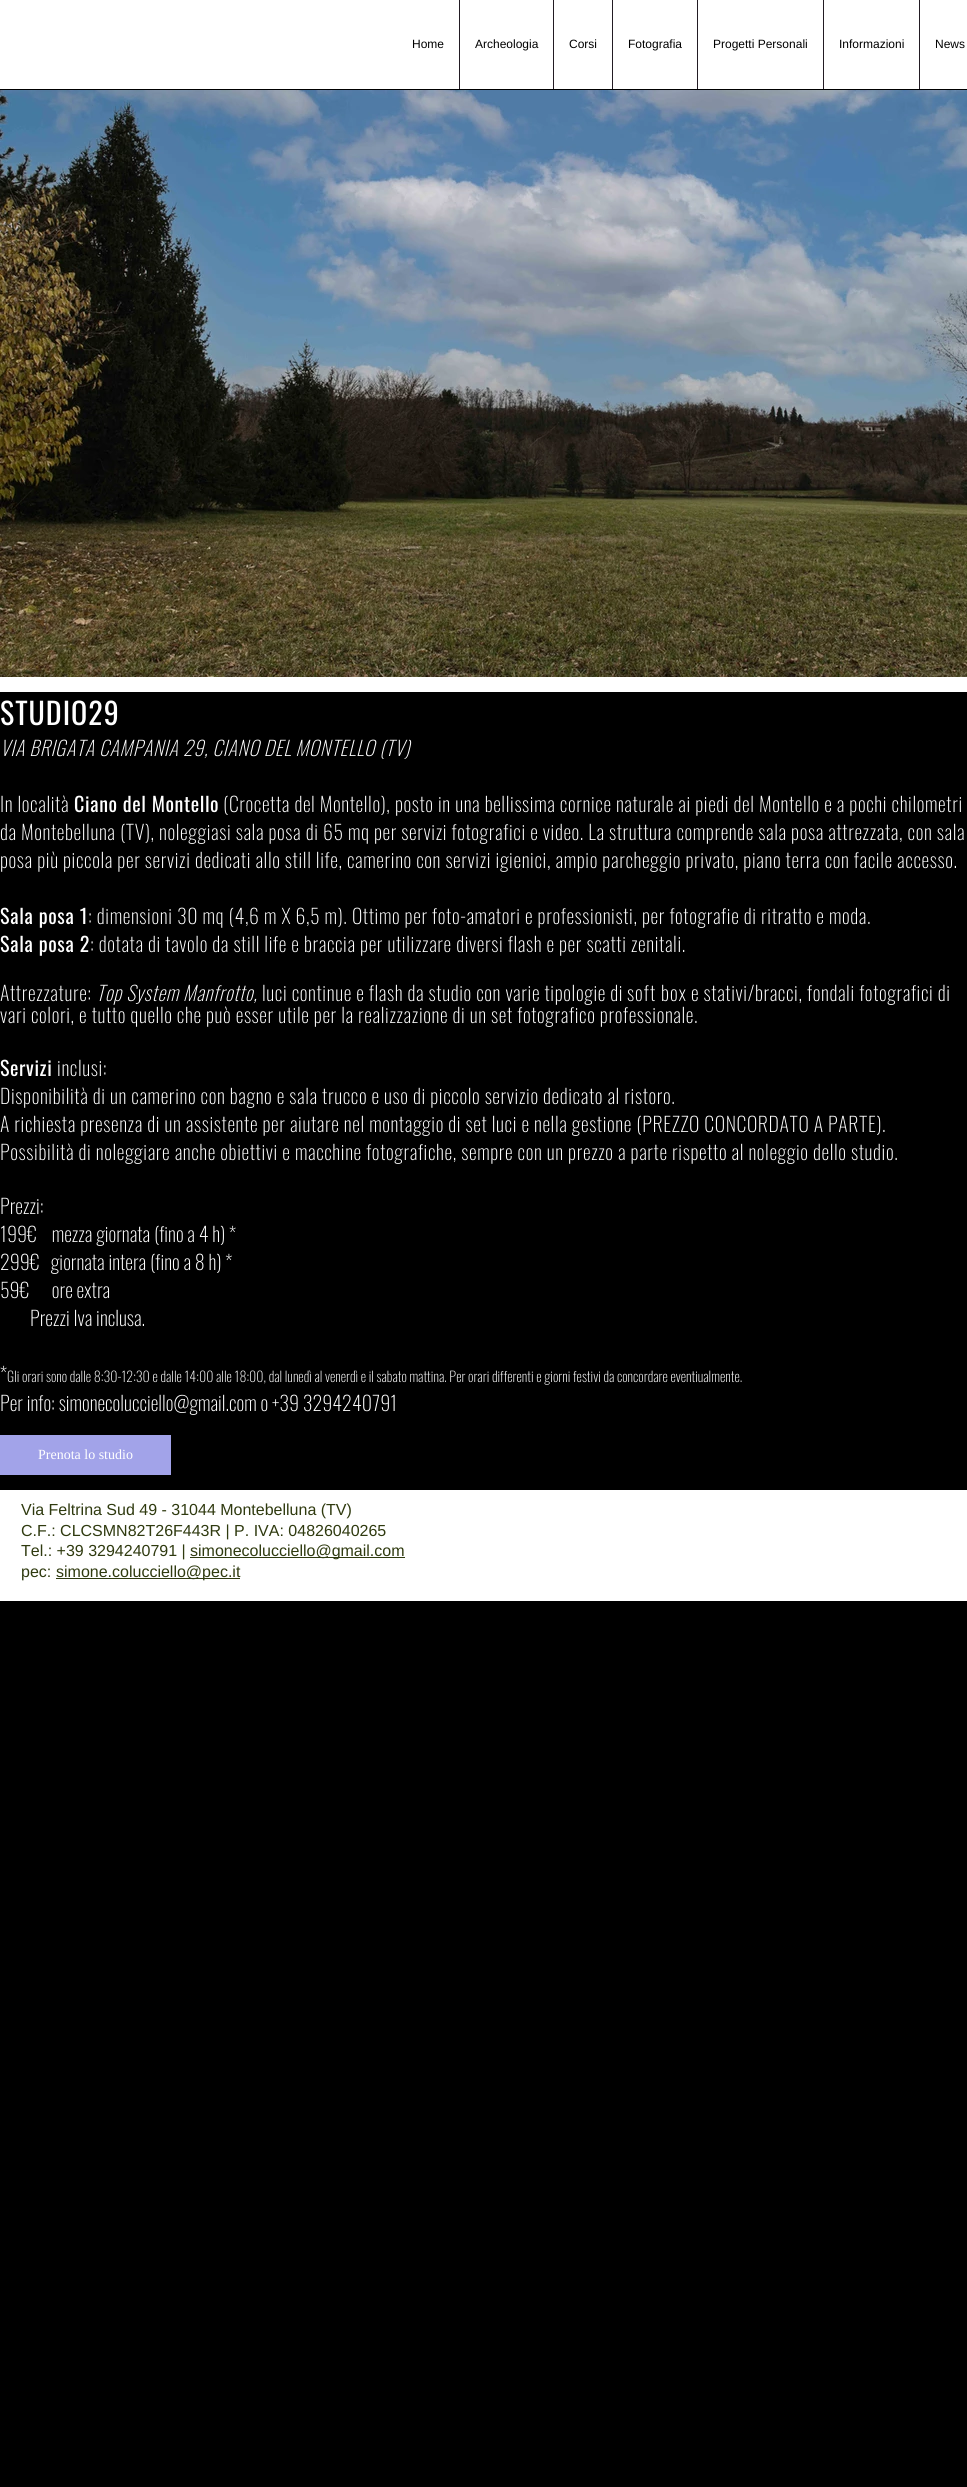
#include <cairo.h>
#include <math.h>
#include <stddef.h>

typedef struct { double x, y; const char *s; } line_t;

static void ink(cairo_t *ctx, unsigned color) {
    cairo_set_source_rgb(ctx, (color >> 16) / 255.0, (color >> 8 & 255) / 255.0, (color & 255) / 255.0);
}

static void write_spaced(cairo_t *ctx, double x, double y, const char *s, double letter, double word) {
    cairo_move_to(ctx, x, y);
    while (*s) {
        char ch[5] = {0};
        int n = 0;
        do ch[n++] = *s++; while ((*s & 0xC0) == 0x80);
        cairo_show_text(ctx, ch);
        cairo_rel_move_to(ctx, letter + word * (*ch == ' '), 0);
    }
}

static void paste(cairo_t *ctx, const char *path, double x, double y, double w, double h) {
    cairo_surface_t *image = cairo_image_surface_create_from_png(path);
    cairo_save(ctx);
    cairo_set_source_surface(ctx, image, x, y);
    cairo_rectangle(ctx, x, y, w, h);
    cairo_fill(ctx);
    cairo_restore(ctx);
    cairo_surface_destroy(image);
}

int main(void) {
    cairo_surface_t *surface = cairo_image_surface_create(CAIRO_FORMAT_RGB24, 967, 2487);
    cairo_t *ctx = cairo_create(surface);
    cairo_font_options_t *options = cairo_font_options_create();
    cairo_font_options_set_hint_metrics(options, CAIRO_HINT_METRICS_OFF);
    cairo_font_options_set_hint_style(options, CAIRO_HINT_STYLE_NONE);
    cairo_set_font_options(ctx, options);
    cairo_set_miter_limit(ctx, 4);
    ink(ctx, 0x000000);
    cairo_paint(ctx);
    ink(ctx, 0xFFFFFF);
    cairo_rectangle(ctx, 0, 0, 967, 89);
    cairo_fill(ctx);
    cairo_select_font_face(ctx, "Liberation Sans", CAIRO_FONT_SLANT_NORMAL, CAIRO_FONT_WEIGHT_NORMAL);
    cairo_set_font_size(ctx, 12);
    ink(ctx, 0x000000);
    cairo_move_to(ctx, 412, 48);
    cairo_show_text(ctx, "Home");
    ink(ctx, 0x221B23);
    cairo_rectangle(ctx, 459, 0, 1, 89);
    cairo_fill(ctx);
    ink(ctx, 0x000000);
    cairo_move_to(ctx, 475, 48);
    cairo_show_text(ctx, "Archeologia");
    ink(ctx, 0x221B23);
    cairo_rectangle(ctx, 553, 0, 1, 89);
    cairo_fill(ctx);
    ink(ctx, 0x000000);
    cairo_move_to(ctx, 569, 48);
    cairo_show_text(ctx, "Corsi");
    ink(ctx, 0x221B23);
    cairo_rectangle(ctx, 612, 0, 1, 89);
    cairo_fill(ctx);
    ink(ctx, 0x000000);
    cairo_move_to(ctx, 628, 48);
    cairo_show_text(ctx, "Fotografia");
    ink(ctx, 0x221B23);
    cairo_rectangle(ctx, 697, 0, 1, 89);
    cairo_fill(ctx);
    ink(ctx, 0x000000);
    cairo_move_to(ctx, 713, 48);
    cairo_show_text(ctx, "Progetti Personali");
    ink(ctx, 0x221B23);
    cairo_rectangle(ctx, 823, 0, 1, 89);
    cairo_fill(ctx);
    ink(ctx, 0x000000);
    cairo_move_to(ctx, 839, 48);
    cairo_show_text(ctx, "Informazioni");
    ink(ctx, 0x221B23);
    cairo_rectangle(ctx, 919, 0, 1, 89);
    cairo_fill(ctx);
    ink(ctx, 0x000000);
    cairo_move_to(ctx, 935, 48);
    cairo_show_text(ctx, "News");
    paste(ctx, "media/1.png", 0, 90, 967, 587);
    ink(ctx, 0xFFFFFF);
    cairo_rectangle(ctx, 0, 677, 967, 15);
    cairo_fill(ctx);
    cairo_select_font_face(ctx, "Oswald", CAIRO_FONT_SLANT_NORMAL, CAIRO_FONT_WEIGHT_NORMAL);
    cairo_set_font_size(ctx, 30);
    write_spaced(ctx, 0, 725, "STUDIO29", 1, 0);
    cairo_select_font_face(ctx, "Oswald ExtraLight", CAIRO_FONT_SLANT_ITALIC, CAIRO_FONT_WEIGHT_NORMAL);
    cairo_set_font_size(ctx, 20);
    write_spaced(ctx, 0, 756, "VIA BRIGATA CAMPANIA 29, CIANO DEL MONTELLO (TV)", 0.6, 0);
    cairo_select_font_face(ctx, "Oswald ExtraLight", CAIRO_FONT_SLANT_NORMAL, CAIRO_FONT_WEIGHT_NORMAL);
    write_spaced(ctx, 0, 812, "In località", 0.6, 0);
    cairo_select_font_face(ctx, "Oswald", CAIRO_FONT_SLANT_NORMAL, CAIRO_FONT_WEIGHT_NORMAL);
    write_spaced(ctx, 74, 812, "Ciano del Montello", 0.6, 0);
    cairo_select_font_face(ctx, "Oswald ExtraLight", CAIRO_FONT_SLANT_NORMAL, CAIRO_FONT_WEIGHT_NORMAL);
    {
        static const line_t items[] = {
            {223, 812, "(Crocetta del Montello), posto in una bellissima cornice naturale ai piedi del Montello e a pochi chilometri"},
            {0, 840, "da Montebelluna (TV), noleggiasi sala posa di 65 mq per servizi fotografici e video. La struttura comprende sala posa attrezzata, con sala"},
            {0, 868, "posa più piccola per servizi dedicati allo still life, camerino con servizi igienici, ampio parcheggio privato, piano terra con facile accesso."},
        };
        for (size_t i = 0; i < sizeof items / sizeof *items; i++) {
            write_spaced(ctx, items[i].x, items[i].y, items[i].s, 0.6, 0);
        }
    }
    cairo_select_font_face(ctx, "Oswald", CAIRO_FONT_SLANT_NORMAL, CAIRO_FONT_WEIGHT_NORMAL);
    write_spaced(ctx, 0, 924, "Sala posa 1", 0.6, 0);
    cairo_select_font_face(ctx, "Oswald ExtraLight", CAIRO_FONT_SLANT_NORMAL, CAIRO_FONT_WEIGHT_NORMAL);
    write_spaced(ctx, 88, 924, ": dimensioni 30 mq (4,6 m X 6,5 m). Ottimo per foto-amatori e professionisti, per fotografie di ritratto e moda.", 0.6, 0);
    cairo_select_font_face(ctx, "Oswald", CAIRO_FONT_SLANT_NORMAL, CAIRO_FONT_WEIGHT_NORMAL);
    write_spaced(ctx, 0, 952, "Sala posa 2", 0.6, 0);
    cairo_select_font_face(ctx, "Oswald ExtraLight", CAIRO_FONT_SLANT_NORMAL, CAIRO_FONT_WEIGHT_NORMAL);
    write_spaced(ctx, 90, 952, ": dotata di tavolo da still life e braccia per utilizzare diversi flash e per scatti zenitali.", 0.6, 0);
    write_spaced(ctx, 0, 1001, "Attrezzature:", 0.6, 0);
    cairo_select_font_face(ctx, "Oswald ExtraLight", CAIRO_FONT_SLANT_ITALIC, CAIRO_FONT_WEIGHT_NORMAL);
    write_spaced(ctx, 96, 1001, "Top System Manfrotto,", 0.6, 0);
    cairo_select_font_face(ctx, "Oswald ExtraLight", CAIRO_FONT_SLANT_NORMAL, CAIRO_FONT_WEIGHT_NORMAL);
    write_spaced(ctx, 262, 1001, "luci continue e flash da studio con varie tipologie di", 0.6, 0);
    write_spaced(ctx, 627, 1001, "soft box", 1, 0);
    write_spaced(ctx, 691, 1001, "e stativi/bracci, fondali fotografici di", 0.6, 0);
    write_spaced(ctx, 0, 1023, "vari colori, e tutto quello che può esser utile per la realizzazione di un set fotografico professionale.", 0.6, 0);
    cairo_select_font_face(ctx, "Oswald", CAIRO_FONT_SLANT_NORMAL, CAIRO_FONT_WEIGHT_NORMAL);
    write_spaced(ctx, 0, 1076, "Servizi", 0.6, 0);
    cairo_select_font_face(ctx, "Oswald ExtraLight", CAIRO_FONT_SLANT_NORMAL, CAIRO_FONT_WEIGHT_NORMAL);
    {
        static const line_t items[] = {
            {57, 1076, "inclusi:"},
            {0, 1104, "Disponibilità di un camerino con bagno e sala trucco e uso di piccolo servizio dedicato al ristoro."},
            {0, 1132, "A richiesta presenza di un assistente per aiutare nel montaggio di set luci e nella gestione (PREZZO CONCORDATO A PARTE)."},
            {0, 1160, "Possibilità di noleggiare anche obiettivi e macchine fotografiche, sempre con un prezzo a parte rispetto al noleggio dello studio."},
        };
        for (size_t i = 0; i < sizeof items / sizeof *items; i++) {
            write_spaced(ctx, items[i].x, items[i].y, items[i].s, 0.6, 0);
        }
    }
    {
        static const line_t items[] = {
            {0, 1214, "Prezzi:"},
            {0, 1242, "199€    mezza giornata (fino a 4 h) *"},
            {0, 1270, "299€   giornata intera (fino a 8 h) *"},
            {0, 1298, "59€      ore extra"},
            {30, 1326, "Prezzi Iva inclusa."},
            {0, 1382, "*"},
        };
        for (size_t i = 0; i < sizeof items / sizeof *items; i++) {
            cairo_move_to(ctx, items[i].x, items[i].y);
            cairo_show_text(ctx, items[i].s);
        }
    }
    cairo_set_font_size(ctx, 14);
    cairo_move_to(ctx, 7, 1382);
    cairo_show_text(ctx, "Gli orari sono dalle 8:30-12:30 e dalle 14:00 alle 18:00, dal lunedì al venerdì e il sabato mattina. Per orari differenti e giorni festivi da concordare eventiualmente.");
    cairo_set_font_size(ctx, 20);
    cairo_move_to(ctx, 0, 1411);
    cairo_show_text(ctx, "Per info: simonecolucciello@gmail.com o +39 3294240791");
    ink(ctx, 0xA2A3E9);
    cairo_rectangle(ctx, 0, 1435, 171, 40);
    cairo_fill(ctx);
    cairo_select_font_face(ctx, "Liberation Serif", CAIRO_FONT_SLANT_NORMAL, CAIRO_FONT_WEIGHT_NORMAL);
    cairo_set_font_size(ctx, 14);
    ink(ctx, 0xFFFFFF);
    cairo_move_to(ctx, 38, 1459);
    cairo_show_text(ctx, "Prenota lo studio");
    cairo_rectangle(ctx, 0, 1490, 967, 111);
    cairo_fill(ctx);
    cairo_select_font_face(ctx, "Liberation Sans", CAIRO_FONT_SLANT_NORMAL, CAIRO_FONT_WEIGHT_NORMAL);
    cairo_set_font_size(ctx, 16);
    ink(ctx, 0x2F3A0F);
    {
        static const line_t items[] = {
            {21, 1515, "Via Feltrina Sud 49 - 31044 Montebelluna (TV)"},
            {21, 1536, "C.F.: CLCSMN82T26F443R | P. IVA: 04826040265"},
            {21, 1556, "Tel.: +39 3294240791 |"},
        };
        for (size_t i = 0; i < sizeof items / sizeof *items; i++) {
            cairo_move_to(ctx, items[i].x, items[i].y);
            cairo_show_text(ctx, items[i].s);
        }
    }
    cairo_rectangle(ctx, 190, 1557, 215, 1);
    cairo_fill(ctx);
    cairo_move_to(ctx, 190, 1556);
    cairo_show_text(ctx, "simonecolucciello@gmail.com");
    cairo_move_to(ctx, 21, 1577);
    cairo_show_text(ctx, "pec:");
    cairo_rectangle(ctx, 56, 1578, 184, 1);
    cairo_fill(ctx);
    cairo_move_to(ctx, 56, 1577);
    cairo_show_text(ctx, "simone.colucciello@pec.it");
    cairo_surface_write_to_png(surface, "image.png");
    cairo_font_options_destroy(options);
    cairo_destroy(ctx);
    cairo_surface_destroy(surface);
    return 0;
}
